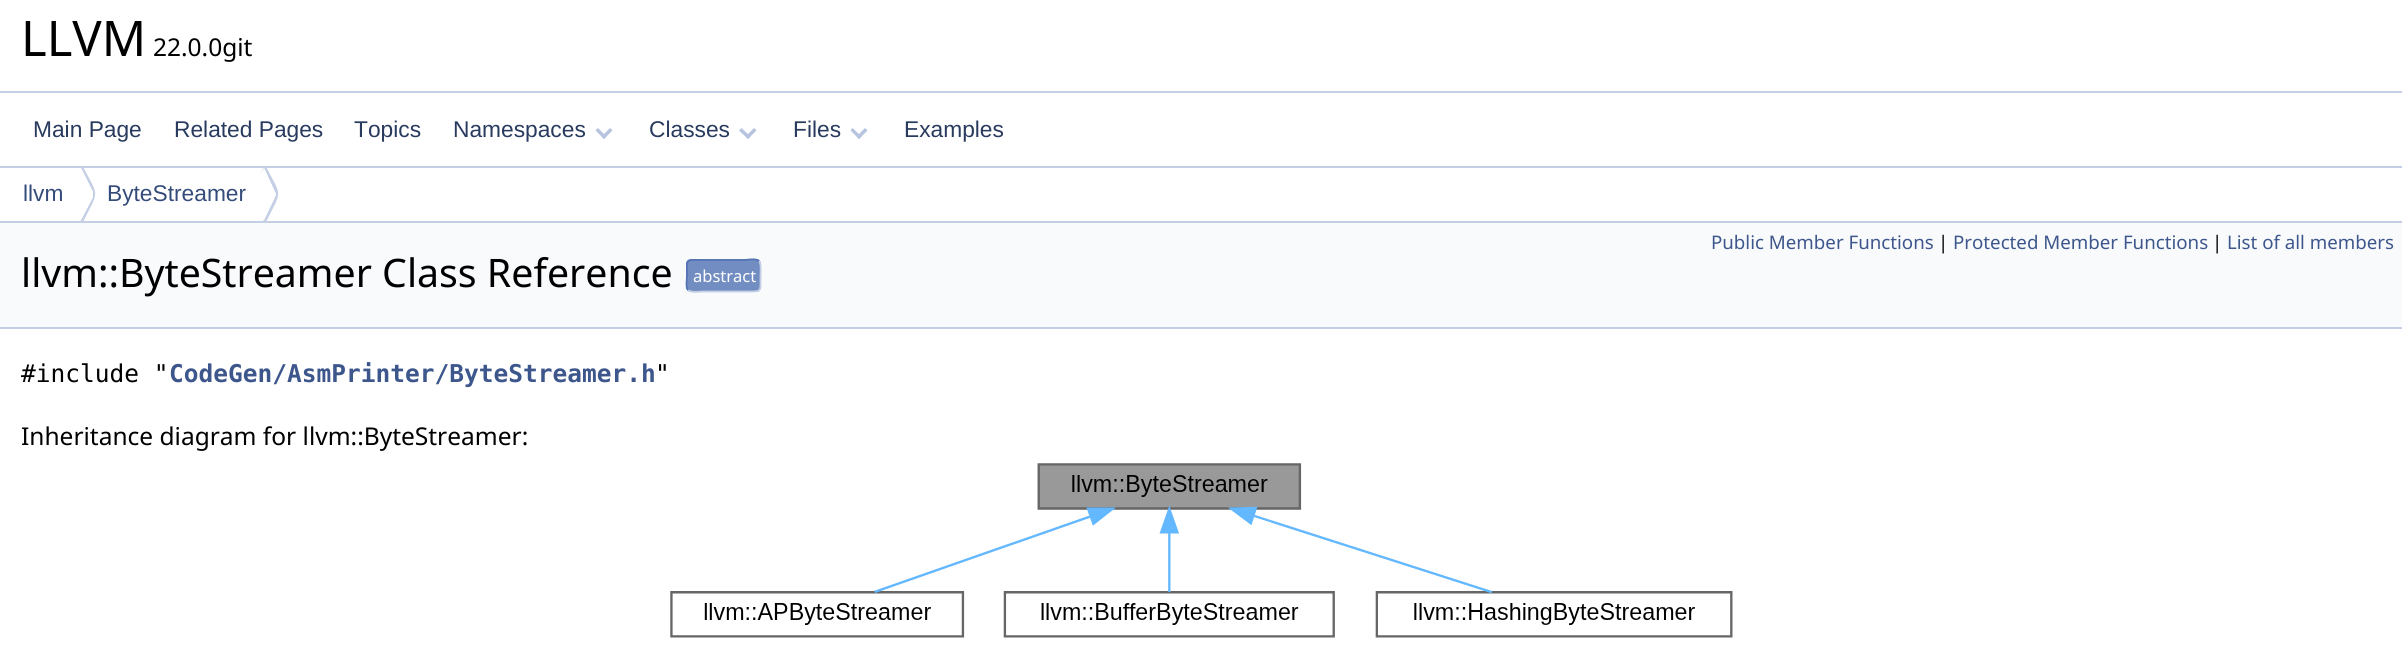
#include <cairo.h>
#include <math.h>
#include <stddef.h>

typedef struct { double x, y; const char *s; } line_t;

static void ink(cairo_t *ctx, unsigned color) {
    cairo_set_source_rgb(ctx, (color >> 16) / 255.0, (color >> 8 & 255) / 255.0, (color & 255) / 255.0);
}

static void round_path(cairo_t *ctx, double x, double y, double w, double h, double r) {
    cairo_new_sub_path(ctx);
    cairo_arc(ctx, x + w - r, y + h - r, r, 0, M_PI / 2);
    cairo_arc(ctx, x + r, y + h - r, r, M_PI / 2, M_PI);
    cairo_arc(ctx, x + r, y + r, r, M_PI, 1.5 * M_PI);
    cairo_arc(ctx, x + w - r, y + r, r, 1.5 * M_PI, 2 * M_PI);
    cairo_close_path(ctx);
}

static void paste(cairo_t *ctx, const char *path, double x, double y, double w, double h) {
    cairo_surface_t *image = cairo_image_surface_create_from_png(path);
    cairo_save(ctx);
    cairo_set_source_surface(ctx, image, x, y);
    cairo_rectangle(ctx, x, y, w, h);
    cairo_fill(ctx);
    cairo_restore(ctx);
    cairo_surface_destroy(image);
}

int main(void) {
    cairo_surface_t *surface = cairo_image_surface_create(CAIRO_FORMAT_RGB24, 2402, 653);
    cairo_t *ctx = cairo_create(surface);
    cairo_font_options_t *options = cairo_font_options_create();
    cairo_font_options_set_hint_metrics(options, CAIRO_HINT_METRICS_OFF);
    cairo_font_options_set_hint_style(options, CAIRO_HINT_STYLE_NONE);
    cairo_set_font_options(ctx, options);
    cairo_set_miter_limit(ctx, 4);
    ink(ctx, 0xFFFFFF);
    cairo_paint(ctx);
    ink(ctx, 0xC4CFE5);
    cairo_rectangle(ctx, 0, 91, 2402, 2);
    cairo_fill(ctx);
    cairo_select_font_face(ctx, "Noto Sans", CAIRO_FONT_SLANT_NORMAL, CAIRO_FONT_WEIGHT_NORMAL);
    cairo_set_font_size(ctx, 49);
    ink(ctx, 0x000000);
    cairo_move_to(ctx, 21, 56);
    cairo_show_text(ctx, "LLVM");
    cairo_set_font_size(ctx, 24.5);
    cairo_move_to(ctx, 153, 56);
    cairo_show_text(ctx, "22.0.0git");
    ink(ctx, 0xC4CFE5);
    cairo_rectangle(ctx, 0, 166, 2402, 2);
    cairo_fill(ctx);
    cairo_select_font_face(ctx, "Liberation Sans", CAIRO_FONT_SLANT_NORMAL, CAIRO_FONT_WEIGHT_NORMAL);
    cairo_set_font_size(ctx, 22.75);
    ink(ctx, 0x283A5D);
    {
        static const line_t items[] = {
            {33, 137, "Main Page"},
            {174, 137, "Related Pages"},
            {354, 137, "Topics"},
            {453, 137, "Namespaces"},
        };
        for (size_t i = 0; i < sizeof items / sizeof *items; i++) {
            cairo_move_to(ctx, items[i].x, items[i].y);
            cairo_show_text(ctx, items[i].s);
        }
    }
    ink(ctx, 0xB6C4DF);
    cairo_new_path(ctx);
    cairo_move_to(ctx, 610, 128);
    cairo_line_to(ctx, 612.5, 130.5);
    cairo_line_to(ctx, 604, 139);
    cairo_line_to(ctx, 601.5, 136.5);
    cairo_close_path(ctx);
    cairo_fill(ctx);
    cairo_new_path(ctx);
    cairo_move_to(ctx, 598, 128);
    cairo_line_to(ctx, 606.5, 136.5);
    cairo_line_to(ctx, 604, 139);
    cairo_line_to(ctx, 595.5, 130.5);
    cairo_close_path(ctx);
    cairo_fill(ctx);
    ink(ctx, 0x283A5D);
    cairo_move_to(ctx, 649, 137);
    cairo_show_text(ctx, "Classes");
    ink(ctx, 0xB6C4DF);
    cairo_new_path(ctx);
    cairo_move_to(ctx, 754, 128);
    cairo_line_to(ctx, 756.5, 130.5);
    cairo_line_to(ctx, 748, 139);
    cairo_line_to(ctx, 745.5, 136.5);
    cairo_close_path(ctx);
    cairo_fill(ctx);
    cairo_new_path(ctx);
    cairo_move_to(ctx, 741.5, 128);
    cairo_line_to(ctx, 750.5, 136.5);
    cairo_line_to(ctx, 748, 139);
    cairo_line_to(ctx, 739, 130.5);
    cairo_close_path(ctx);
    cairo_fill(ctx);
    ink(ctx, 0x283A5D);
    cairo_move_to(ctx, 793, 137);
    cairo_show_text(ctx, "Files");
    ink(ctx, 0xB6C4DF);
    cairo_new_path(ctx);
    cairo_move_to(ctx, 865, 128);
    cairo_line_to(ctx, 867.5, 130.5);
    cairo_line_to(ctx, 859, 139);
    cairo_line_to(ctx, 856.5, 136.5);
    cairo_close_path(ctx);
    cairo_fill(ctx);
    cairo_new_path(ctx);
    cairo_move_to(ctx, 852.5, 128);
    cairo_line_to(ctx, 861.5, 136.5);
    cairo_line_to(ctx, 859, 139);
    cairo_line_to(ctx, 850.5, 130.5);
    cairo_close_path(ctx);
    cairo_fill(ctx);
    ink(ctx, 0x283A5D);
    cairo_move_to(ctx, 904, 137);
    cairo_show_text(ctx, "Examples");
    ink(ctx, 0xC4CFE5);
    cairo_rectangle(ctx, 0, 221, 2402, 2);
    cairo_fill(ctx);
    ink(ctx, 0x354C7B);
    cairo_move_to(ctx, 23, 201);
    cairo_show_text(ctx, "llvm");
    cairo_save(ctx);
    cairo_rectangle(ctx, 0, 168, 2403, 53);
    cairo_clip(ctx);
    ink(ctx, 0xC4CFE5);
    cairo_new_path(ctx);
    cairo_move_to(ctx, 82, 165);
    cairo_line_to(ctx, 81, 168);
    cairo_line_to(ctx, 93, 192);
    cairo_curve_to(ctx, 93, 193, 93, 195, 93, 197);
    cairo_line_to(ctx, 81, 220);
    cairo_line_to(ctx, 80, 218);
    cairo_line_to(ctx, 82, 224);
    cairo_curve_to(ctx, 99, 189, 100, 199, 82, 165);
    cairo_close_path(ctx);
    cairo_fill(ctx);
    cairo_restore(ctx);
    ink(ctx, 0xFFFFFF);
    cairo_new_path(ctx);
    cairo_move_to(ctx, 81, 168);
    cairo_line_to(ctx, 93, 192);
    cairo_curve_to(ctx, 93, 193, 93, 195, 93, 197);
    cairo_line_to(ctx, 81, 220);
    cairo_curve_to(ctx, 73, 206, 73, 182, 81, 168);
    cairo_close_path(ctx);
    cairo_fill(ctx);
    ink(ctx, 0x354C7B);
    cairo_move_to(ctx, 107, 201);
    cairo_show_text(ctx, "ByteStreamer");
    cairo_save(ctx);
    cairo_rectangle(ctx, 0, 168, 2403, 53);
    cairo_clip(ctx);
    ink(ctx, 0xC4CFE5);
    cairo_new_path(ctx);
    cairo_move_to(ctx, 265, 165);
    cairo_curve_to(ctx, 263, 167, 262, 171, 261, 174);
    cairo_line_to(ctx, 264, 168);
    cairo_line_to(ctx, 275, 192);
    cairo_curve_to(ctx, 276, 193, 276, 195, 275, 197);
    cairo_line_to(ctx, 264, 220);
    cairo_line_to(ctx, 263, 220);
    cairo_line_to(ctx, 265, 224);
    cairo_curve_to(ctx, 282, 189, 283, 199, 265, 165);
    cairo_close_path(ctx);
    cairo_fill(ctx);
    cairo_restore(ctx);
    ink(ctx, 0xFFFFFF);
    cairo_new_path(ctx);
    cairo_move_to(ctx, 264, 168);
    cairo_line_to(ctx, 275, 192);
    cairo_curve_to(ctx, 276, 193, 276, 195, 275, 197);
    cairo_line_to(ctx, 264, 220);
    cairo_curve_to(ctx, 256, 206, 256, 182, 264, 168);
    cairo_close_path(ctx);
    cairo_fill(ctx);
    ink(ctx, 0xF9FAFC);
    cairo_rectangle(ctx, 0, 223, 2402, 104);
    cairo_fill(ctx);
    ink(ctx, 0xC4CFE5);
    cairo_rectangle(ctx, 0, 327, 2402, 2);
    cairo_fill(ctx);
    cairo_select_font_face(ctx, "Noto Sans", CAIRO_FONT_SLANT_NORMAL, CAIRO_FONT_WEIGHT_NORMAL);
    cairo_set_font_size(ctx, 18.7);
    ink(ctx, 0x3D578C);
    cairo_move_to(ctx, 1711, 249);
    cairo_show_text(ctx, "Public Member Functions");
    ink(ctx, 0x000000);
    cairo_move_to(ctx, 1938, 249);
    cairo_show_text(ctx, "|");
    ink(ctx, 0x3D578C);
    cairo_move_to(ctx, 1953, 249);
    cairo_show_text(ctx, "Protected Member Functions");
    ink(ctx, 0x000000);
    cairo_move_to(ctx, 2212, 249);
    cairo_show_text(ctx, "|");
    ink(ctx, 0x3D578C);
    cairo_move_to(ctx, 2227, 249);
    cairo_show_text(ctx, "List of all members");
    cairo_set_font_size(ctx, 39.25);
    ink(ctx, 0x000000);
    cairo_move_to(ctx, 21, 287);
    cairo_show_text(ctx, "llvm::ByteStreamer Class Reference");
    ink(ctx, 0x728DC1);
    round_path(ctx, 686, 259, 75, 33, 5);
    cairo_fill(ctx);
    cairo_new_path(ctx);
    cairo_move_to(ctx, 759, 261);
    cairo_curve_to(ctx, 761.5, 263.5, 760.5, 272.5, 760.5, 275.5);
    cairo_curve_to(ctx, 760.5, 292.5, 762.5, 291.5, 745, 291.5);
    cairo_line_to(ctx, 702, 291.5);
    cairo_curve_to(ctx, 701, 291.5, 691, 293, 688, 290);
    ink(ctx, 0xC4CFE5);
    cairo_set_line_width(ctx, 1.8);
    cairo_stroke(ctx);
    cairo_new_path(ctx);
    cairo_move_to(ctx, 688, 290);
    cairo_curve_to(ctx, 685.5, 287.5, 687, 279, 687, 275.5);
    cairo_curve_to(ctx, 687, 258.5, 684.5, 260, 702, 260);
    cairo_line_to(ctx, 745, 260);
    cairo_curve_to(ctx, 746, 260, 756, 258, 759, 261);
    ink(ctx, 0x5373B4);
    cairo_stroke(ctx);
    cairo_set_font_size(ctx, 16.5);
    ink(ctx, 0xFFFFFF);
    cairo_move_to(ctx, 693, 282);
    cairo_show_text(ctx, "abstract");
    cairo_select_font_face(ctx, "DejaVu Sans Mono", CAIRO_FONT_SLANT_NORMAL, CAIRO_FONT_WEIGHT_NORMAL);
    cairo_set_font_size(ctx, 24.5);
    ink(ctx, 0x000000);
    cairo_move_to(ctx, 21, 382);
    cairo_show_text(ctx, "#include \"");
    cairo_select_font_face(ctx, "DejaVu Sans Mono", CAIRO_FONT_SLANT_NORMAL, CAIRO_FONT_WEIGHT_BOLD);
    ink(ctx, 0x3D578C);
    cairo_move_to(ctx, 169, 382);
    cairo_show_text(ctx, "CodeGen/AsmPrinter/ByteStreamer.h");
    cairo_select_font_face(ctx, "DejaVu Sans Mono", CAIRO_FONT_SLANT_NORMAL, CAIRO_FONT_WEIGHT_NORMAL);
    ink(ctx, 0x000000);
    cairo_move_to(ctx, 655, 382);
    cairo_show_text(ctx, "\"");
    cairo_select_font_face(ctx, "Noto Sans", CAIRO_FONT_SLANT_NORMAL, CAIRO_FONT_WEIGHT_NORMAL);
    cairo_move_to(ctx, 21, 445);
    cairo_show_text(ctx, "Inheritance diagram for llvm::ByteStreamer:");
    paste(ctx, "media/1.png", 670, 463, 1063, 175);
    cairo_surface_write_to_png(surface, "image.png");
    cairo_font_options_destroy(options);
    cairo_destroy(ctx);
    cairo_surface_destroy(surface);
    return 0;
}
